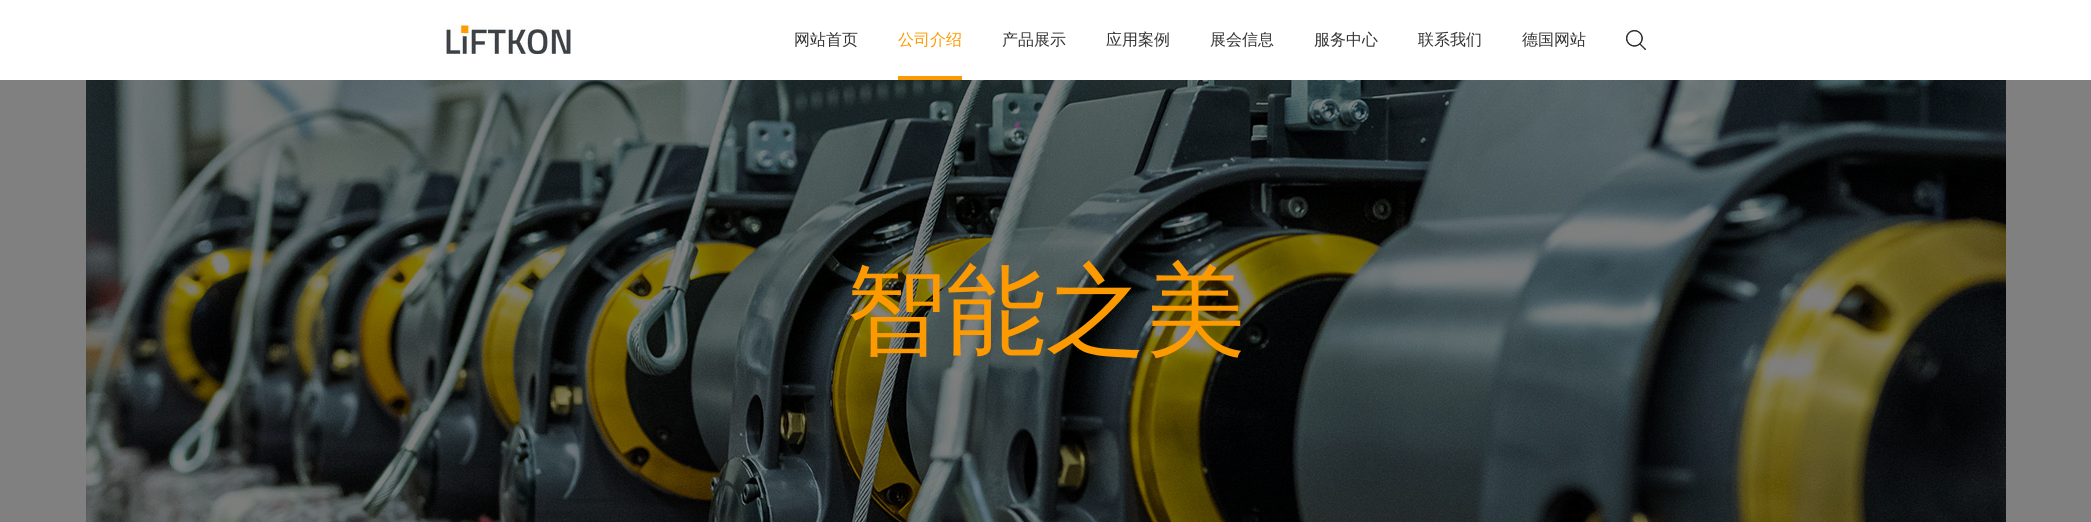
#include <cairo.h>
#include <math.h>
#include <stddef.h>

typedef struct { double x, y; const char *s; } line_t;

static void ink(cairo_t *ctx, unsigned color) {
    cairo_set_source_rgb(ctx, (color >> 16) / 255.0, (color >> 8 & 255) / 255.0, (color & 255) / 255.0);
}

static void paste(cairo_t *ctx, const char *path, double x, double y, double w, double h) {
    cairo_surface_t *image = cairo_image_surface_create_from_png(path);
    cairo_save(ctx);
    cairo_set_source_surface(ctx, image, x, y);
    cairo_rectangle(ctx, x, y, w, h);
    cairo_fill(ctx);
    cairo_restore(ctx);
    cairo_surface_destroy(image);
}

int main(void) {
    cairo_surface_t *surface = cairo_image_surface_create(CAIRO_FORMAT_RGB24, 2091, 522);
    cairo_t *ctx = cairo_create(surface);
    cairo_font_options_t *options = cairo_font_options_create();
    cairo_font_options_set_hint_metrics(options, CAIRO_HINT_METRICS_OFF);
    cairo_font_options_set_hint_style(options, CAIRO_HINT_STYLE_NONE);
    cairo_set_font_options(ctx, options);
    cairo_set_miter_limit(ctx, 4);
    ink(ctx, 0xFFFFFF);
    cairo_paint(ctx);
    ink(ctx, 0x808080);
    cairo_rectangle(ctx, 0, 80, 2091, 442);
    cairo_fill(ctx);
    paste(ctx, "media/1.png", 446, 25, 125, 29);
    cairo_select_font_face(ctx, "WenQuanYi Zen Hei Medium", CAIRO_FONT_SLANT_NORMAL, CAIRO_FONT_WEIGHT_NORMAL);
    cairo_set_font_size(ctx, 16);
    ink(ctx, 0x333333);
    cairo_move_to(ctx, 794, 45);
    cairo_show_text(ctx, "网站首页");
    ink(ctx, 0xFE9A01);
    cairo_move_to(ctx, 898, 45);
    cairo_show_text(ctx, "公司介绍");
    cairo_rectangle(ctx, 898, 76, 64, 4);
    cairo_fill(ctx);
    ink(ctx, 0x333333);
    {
        static const line_t items[] = {
            {1002, 45, "产品展示"},
            {1106, 45, "应用案例"},
            {1210, 45, "展会信息"},
            {1314, 45, "服务中心"},
            {1418, 45, "联系我们"},
            {1522, 45, "德国网站"},
        };
        for (size_t i = 0; i < sizeof items / sizeof *items; i++) {
            cairo_move_to(ctx, items[i].x, items[i].y);
            cairo_show_text(ctx, items[i].s);
        }
    }
    paste(ctx, "media/2.png", 1626, 30, 20, 20);
    paste(ctx, "media/3.png", 86, 80, 1920, 442);
    cairo_set_font_size(ctx, 100);
    ink(ctx, 0xFE9A01);
    cairo_move_to(ctx, 846, 345);
    cairo_show_text(ctx, "智能之美");
    cairo_surface_write_to_png(surface, "image.png");
    cairo_font_options_destroy(options);
    cairo_destroy(ctx);
    cairo_surface_destroy(surface);
    return 0;
}
